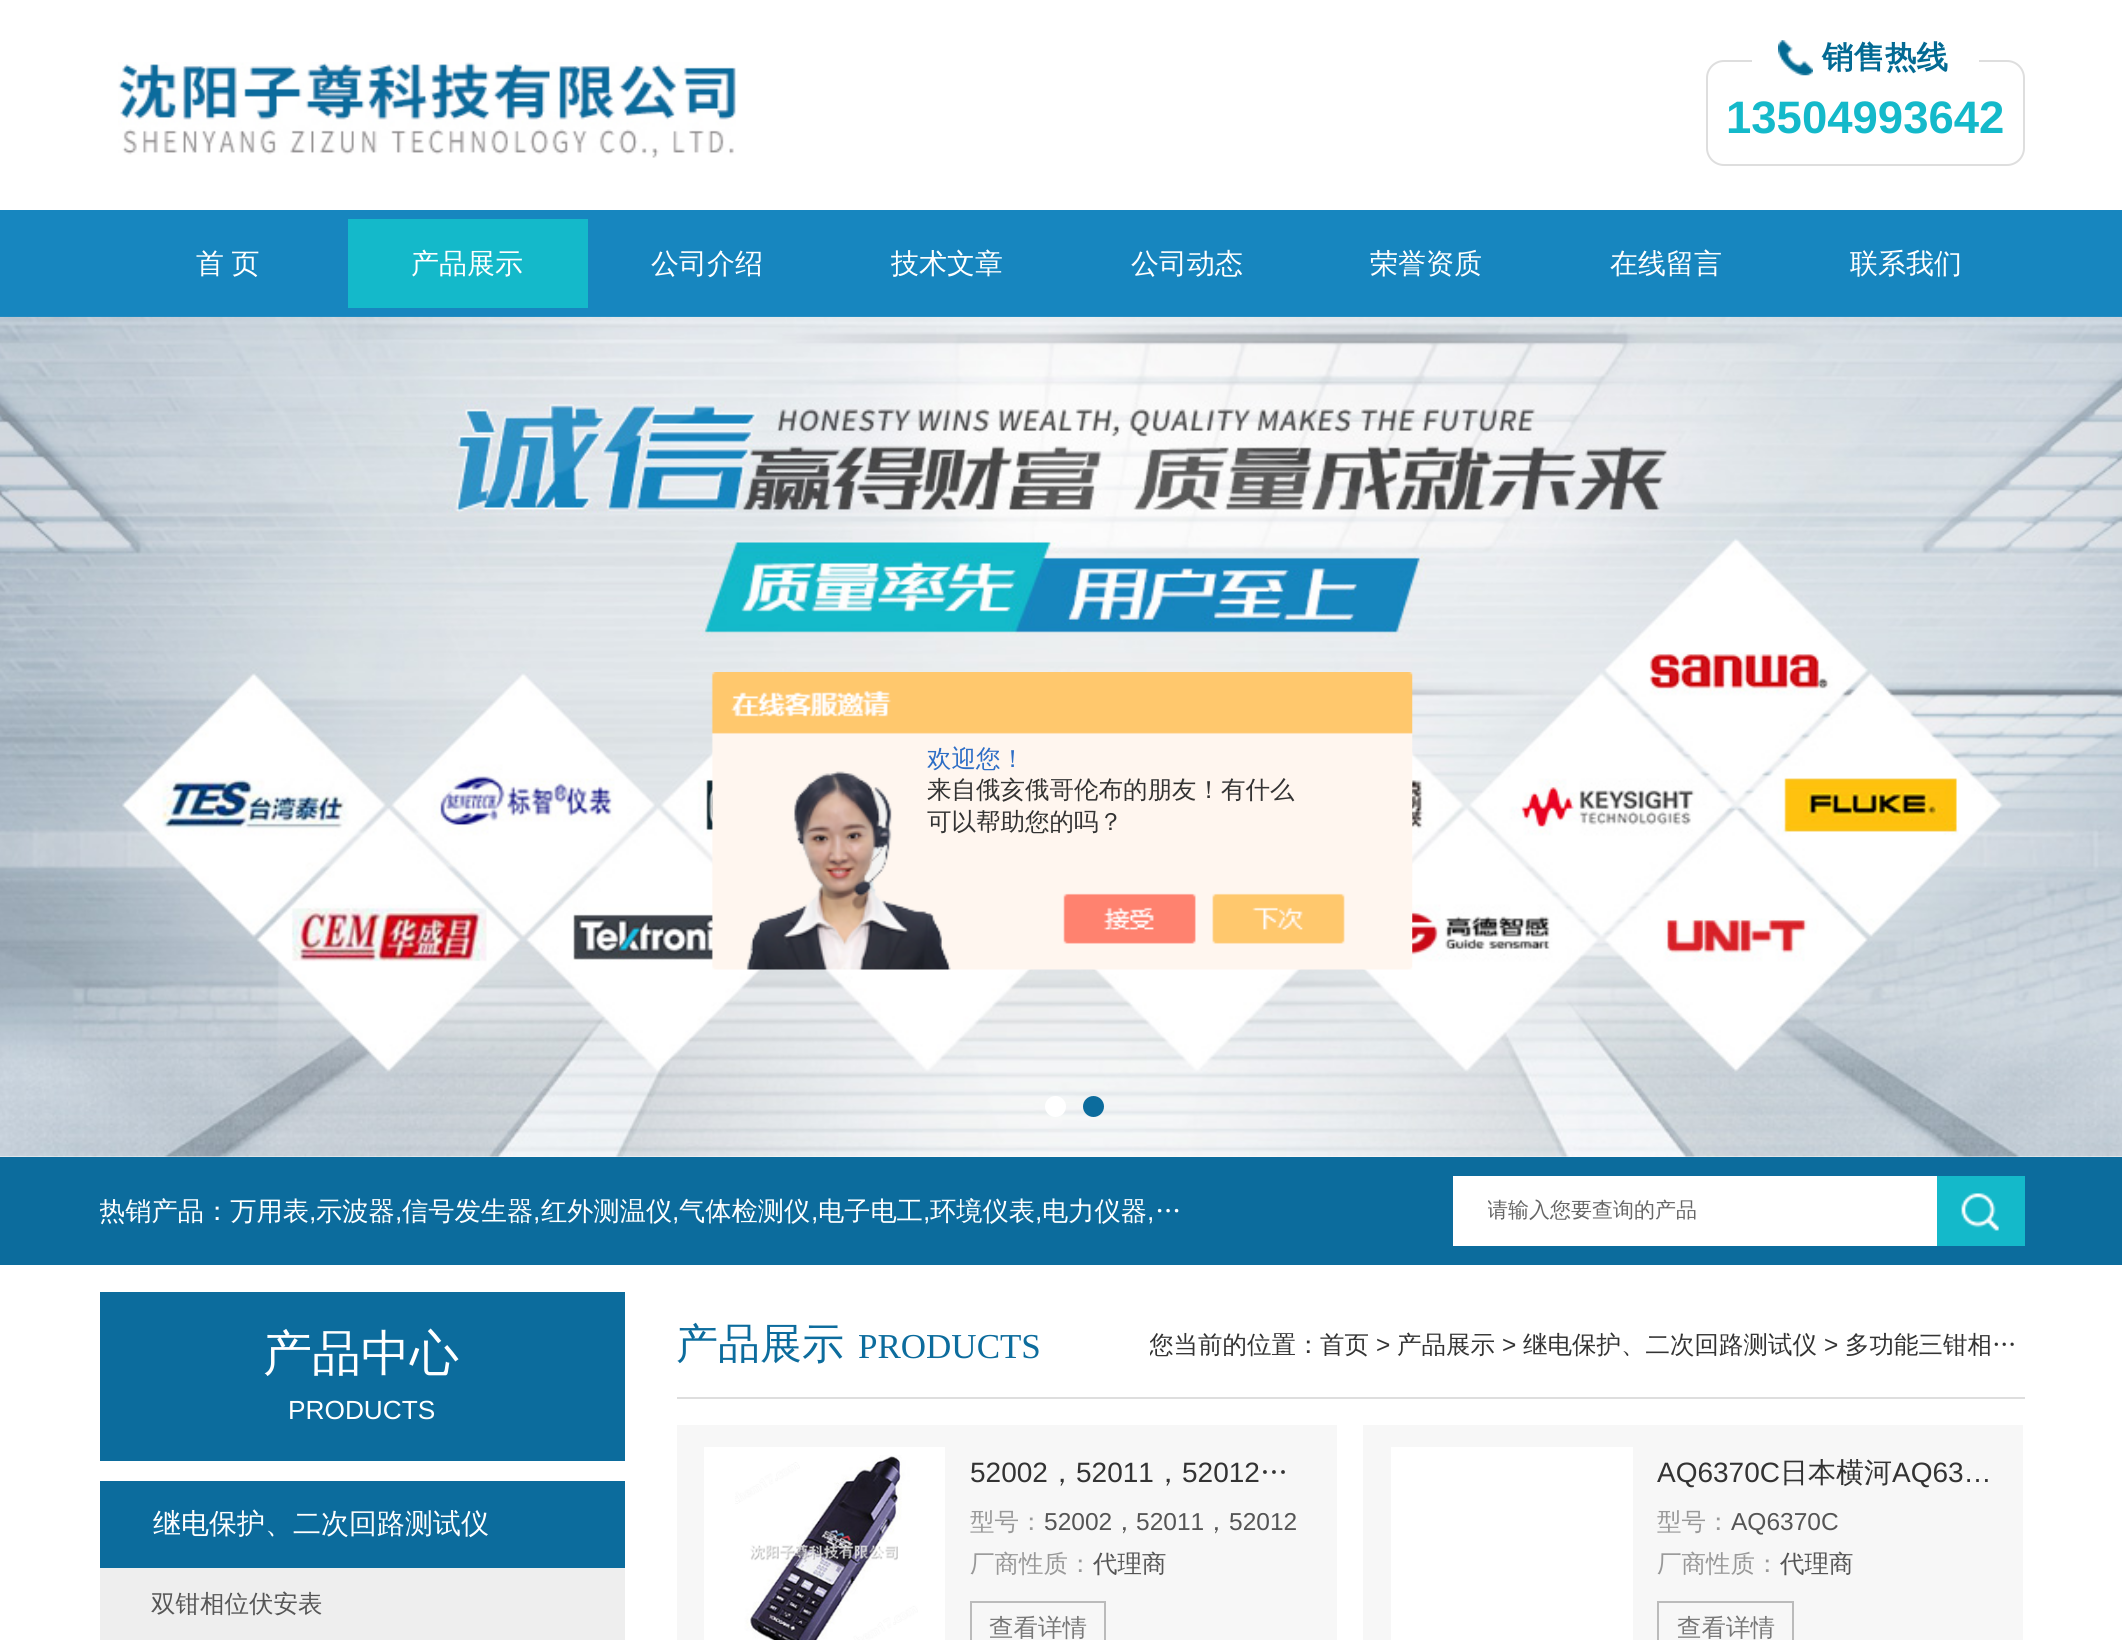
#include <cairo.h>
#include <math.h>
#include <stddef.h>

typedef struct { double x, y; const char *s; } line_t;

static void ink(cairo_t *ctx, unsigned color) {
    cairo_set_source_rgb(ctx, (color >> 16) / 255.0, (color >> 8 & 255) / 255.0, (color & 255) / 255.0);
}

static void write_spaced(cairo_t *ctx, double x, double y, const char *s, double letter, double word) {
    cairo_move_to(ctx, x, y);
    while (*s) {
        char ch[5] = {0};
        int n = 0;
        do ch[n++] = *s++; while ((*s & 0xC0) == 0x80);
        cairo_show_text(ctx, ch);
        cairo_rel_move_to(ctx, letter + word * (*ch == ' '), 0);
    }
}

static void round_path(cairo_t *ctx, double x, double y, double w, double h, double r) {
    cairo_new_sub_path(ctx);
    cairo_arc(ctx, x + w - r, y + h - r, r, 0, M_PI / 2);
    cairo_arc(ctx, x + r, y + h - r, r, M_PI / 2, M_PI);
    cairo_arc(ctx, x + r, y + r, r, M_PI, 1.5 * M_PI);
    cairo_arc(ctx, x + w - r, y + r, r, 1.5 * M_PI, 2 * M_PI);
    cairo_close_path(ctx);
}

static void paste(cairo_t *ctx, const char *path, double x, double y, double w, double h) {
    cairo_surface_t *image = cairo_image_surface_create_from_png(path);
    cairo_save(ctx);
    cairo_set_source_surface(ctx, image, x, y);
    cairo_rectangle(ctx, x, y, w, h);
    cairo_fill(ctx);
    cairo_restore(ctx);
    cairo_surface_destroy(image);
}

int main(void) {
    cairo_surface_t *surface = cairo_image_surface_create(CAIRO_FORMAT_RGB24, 2122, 1640);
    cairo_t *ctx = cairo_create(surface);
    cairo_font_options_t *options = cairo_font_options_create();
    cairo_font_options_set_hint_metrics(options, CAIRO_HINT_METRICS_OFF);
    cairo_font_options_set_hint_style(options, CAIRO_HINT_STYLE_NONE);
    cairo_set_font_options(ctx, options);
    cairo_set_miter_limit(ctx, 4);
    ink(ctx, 0xFFFFFF);
    cairo_paint(ctx);
    paste(ctx, "media/1.png", 118, 62, 618, 96);
    round_path(ctx, 1707, 61, 317, 104, 17);
    ink(ctx, 0xDEDEDE);
    cairo_stroke(ctx);
    ink(ctx, 0xFFFFFF);
    cairo_rectangle(ctx, 1752, 60, 227, 2);
    cairo_fill(ctx);
    paste(ctx, "media/2.png", 1778, 40, 35, 36);
    cairo_select_font_face(ctx, "WenQuanYi Zen Hei", CAIRO_FONT_SLANT_NORMAL, CAIRO_FONT_WEIGHT_BOLD);
    cairo_set_font_size(ctx, 31.5);
    ink(ctx, 0x036A93);
    cairo_move_to(ctx, 1822, 68);
    cairo_show_text(ctx, "销售热线");
    cairo_select_font_face(ctx, "Liberation Sans", CAIRO_FONT_SLANT_NORMAL, CAIRO_FONT_WEIGHT_BOLD);
    cairo_set_font_size(ctx, 45.5);
    ink(ctx, 0x14B9CA);
    cairo_move_to(ctx, 1726, 133);
    cairo_show_text(ctx, "13504993642");
    ink(ctx, 0x1786BF);
    cairo_rectangle(ctx, 0, 210, 2122, 107);
    cairo_fill(ctx);
    cairo_select_font_face(ctx, "WenQuanYi Zen Hei Medium", CAIRO_FONT_SLANT_NORMAL, CAIRO_FONT_WEIGHT_NORMAL);
    cairo_set_font_size(ctx, 28);
    ink(ctx, 0xFFFFFF);
    write_spaced(ctx, 196, 273, "首 页", 0, -1);
    ink(ctx, 0x14B9CA);
    cairo_rectangle(ctx, 348, 219, 240, 89);
    cairo_fill(ctx);
    ink(ctx, 0xFFFFFF);
    {
        static const line_t items[] = {
            {411, 273, "产品展示"},
            {651, 273, "公司介绍"},
            {891, 273, "技术文章"},
            {1131, 273, "公司动态"},
            {1370, 273, "荣誉资质"},
            {1610, 273, "在线留言"},
            {1850, 273, "联系我们"},
        };
        for (size_t i = 0; i < sizeof items / sizeof *items; i++) {
            cairo_move_to(ctx, items[i].x, items[i].y);
            cairo_show_text(ctx, items[i].s);
        }
    }
    paste(ctx, "media/3.png", 0, 316, 2122, 841);
    cairo_arc(ctx, 1055.5, 1106.5, 10.5, 0, 2 * M_PI);
    cairo_fill(ctx);
    ink(ctx, 0x0C6C9D);
    cairo_arc(ctx, 1093.5, 1106.5, 10.5, 0, 2 * M_PI);
    cairo_fill(ctx);
    cairo_rectangle(ctx, 0, 1157, 2122, 108);
    cairo_fill(ctx);
    cairo_save(ctx);
    cairo_rectangle(ctx, 100, 1157, 1106, 108);
    cairo_clip(ctx);
    cairo_set_font_size(ctx, 26.25);
    ink(ctx, 0xFFFFFF);
    cairo_move_to(ctx, 99, 1220);
    cairo_show_text(ctx, "热销产品：万用表");
    cairo_restore(ctx);
    cairo_set_font_size(ctx, 26.25);
    ink(ctx, 0xFFFFFF);
    {
        static const line_t items[] = {
            {316, 1220, "示波器"},
            {402, 1220, "信号发生器"},
            {541, 1220, "红外测温仪"},
            {679, 1220, "气体检测仪"},
            {818, 1220, "电子电工"},
            {930, 1220, "环境仪表"},
            {1042, 1220, "电力仪器"},
            {1155, 1220, "…"},
        };
        for (size_t i = 0; i < sizeof items / sizeof *items; i++) {
            cairo_move_to(ctx, items[i].x, items[i].y);
            cairo_show_text(ctx, items[i].s);
        }
    }
    cairo_select_font_face(ctx, "Liberation Sans", CAIRO_FONT_SLANT_NORMAL, CAIRO_FONT_WEIGHT_NORMAL);
    {
        static const line_t items[] = {
            {309, 1220, ","},
            {395, 1220, ","},
            {533, 1220, ","},
            {672, 1220, ","},
            {811, 1220, ","},
            {923, 1220, ","},
            {1035, 1220, ","},
            {1147, 1220, ","},
        };
        for (size_t i = 0; i < sizeof items / sizeof *items; i++) {
            cairo_move_to(ctx, items[i].x, items[i].y);
            cairo_show_text(ctx, items[i].s);
        }
    }
    cairo_rectangle(ctx, 1453, 1176, 484, 70);
    cairo_fill(ctx);
    cairo_save(ctx);
    cairo_rectangle(ctx, 1488, 1197, 444, 30);
    cairo_clip(ctx);
    cairo_select_font_face(ctx, "WenQuanYi Zen Hei Medium", CAIRO_FONT_SLANT_NORMAL, CAIRO_FONT_WEIGHT_NORMAL);
    cairo_set_font_size(ctx, 21);
    ink(ctx, 0x666666);
    cairo_move_to(ctx, 1487, 1217);
    cairo_show_text(ctx, "请输入您要查询的产品");
    cairo_restore(ctx);
    ink(ctx, 0x14B9CA);
    cairo_rectangle(ctx, 1937, 1176, 88, 70);
    cairo_fill(ctx);
    paste(ctx, "media/4.png", 1961, 1193, 38, 38);
    ink(ctx, 0x0C6C9D);
    cairo_rectangle(ctx, 100, 1292, 525, 169);
    cairo_fill(ctx);
    cairo_select_font_face(ctx, "WenQuanYi Zen Hei Medium", CAIRO_FONT_SLANT_NORMAL, CAIRO_FONT_WEIGHT_NORMAL);
    cairo_set_font_size(ctx, 49);
    ink(ctx, 0xFFFFFF);
    cairo_move_to(ctx, 263, 1370);
    cairo_show_text(ctx, "产品中心");
    cairo_select_font_face(ctx, "Liberation Sans", CAIRO_FONT_SLANT_NORMAL, CAIRO_FONT_WEIGHT_NORMAL);
    cairo_set_font_size(ctx, 26.25);
    cairo_move_to(ctx, 288, 1419);
    cairo_show_text(ctx, "PRODUCTS");
    ink(ctx, 0x0C6C9D);
    cairo_rectangle(ctx, 100, 1481, 525, 87);
    cairo_fill(ctx);
    cairo_select_font_face(ctx, "WenQuanYi Zen Hei Medium", CAIRO_FONT_SLANT_NORMAL, CAIRO_FONT_WEIGHT_NORMAL);
    cairo_set_font_size(ctx, 28);
    ink(ctx, 0xFFFFFF);
    cairo_move_to(ctx, 153, 1533);
    cairo_show_text(ctx, "继电保护、二次回路测试仪");
    ink(ctx, 0xEEEEEE);
    cairo_rectangle(ctx, 100, 1568, 525, 72);
    cairo_fill(ctx);
    cairo_set_font_size(ctx, 24.5);
    ink(ctx, 0x555555);
    cairo_move_to(ctx, 151, 1612);
    cairo_show_text(ctx, "双钳相位伏安表");
    ink(ctx, 0xDEDEDE);
    cairo_rectangle(ctx, 677, 1397, 1348, 2);
    cairo_fill(ctx);
    cairo_set_font_size(ctx, 42);
    ink(ctx, 0x0C6C9D);
    cairo_move_to(ctx, 676, 1358);
    cairo_show_text(ctx, "产品展示");
    cairo_select_font_face(ctx, "Liberation Serif", CAIRO_FONT_SLANT_NORMAL, CAIRO_FONT_WEIGHT_NORMAL);
    cairo_set_font_size(ctx, 35);
    cairo_move_to(ctx, 858, 1358);
    cairo_show_text(ctx, "PRODUCTS");
    cairo_save(ctx);
    cairo_rectangle(ctx, 1150, 1292, 875, 105);
    cairo_clip(ctx);
    cairo_select_font_face(ctx, "WenQuanYi Zen Hei Medium", CAIRO_FONT_SLANT_NORMAL, CAIRO_FONT_WEIGHT_NORMAL);
    cairo_set_font_size(ctx, 24.5);
    ink(ctx, 0x333333);
    cairo_move_to(ctx, 1149, 1353);
    cairo_show_text(ctx, "您当前的位置：");
    cairo_restore(ctx);
    cairo_select_font_face(ctx, "WenQuanYi Zen Hei Medium", CAIRO_FONT_SLANT_NORMAL, CAIRO_FONT_WEIGHT_NORMAL);
    cairo_set_font_size(ctx, 24.5);
    ink(ctx, 0x333333);
    cairo_move_to(ctx, 1320, 1353);
    cairo_show_text(ctx, "首页");
    cairo_select_font_face(ctx, "Liberation Sans", CAIRO_FONT_SLANT_NORMAL, CAIRO_FONT_WEIGHT_NORMAL);
    cairo_move_to(ctx, 1376, 1353);
    cairo_show_text(ctx, ">");
    cairo_select_font_face(ctx, "WenQuanYi Zen Hei Medium", CAIRO_FONT_SLANT_NORMAL, CAIRO_FONT_WEIGHT_NORMAL);
    cairo_move_to(ctx, 1397, 1353);
    cairo_show_text(ctx, "产品展示");
    cairo_select_font_face(ctx, "Liberation Sans", CAIRO_FONT_SLANT_NORMAL, CAIRO_FONT_WEIGHT_NORMAL);
    cairo_move_to(ctx, 1502, 1353);
    cairo_show_text(ctx, ">");
    cairo_select_font_face(ctx, "WenQuanYi Zen Hei Medium", CAIRO_FONT_SLANT_NORMAL, CAIRO_FONT_WEIGHT_NORMAL);
    cairo_move_to(ctx, 1523, 1353);
    cairo_show_text(ctx, "继电保护、二次回路测试仪");
    cairo_select_font_face(ctx, "Liberation Sans", CAIRO_FONT_SLANT_NORMAL, CAIRO_FONT_WEIGHT_NORMAL);
    cairo_move_to(ctx, 1824, 1353);
    cairo_show_text(ctx, ">");
    cairo_select_font_face(ctx, "WenQuanYi Zen Hei Medium", CAIRO_FONT_SLANT_NORMAL, CAIRO_FONT_WEIGHT_NORMAL);
    cairo_move_to(ctx, 1845, 1353);
    cairo_show_text(ctx, "多功能三钳相…");
    ink(ctx, 0xF7F7F7);
    cairo_rectangle(ctx, 677, 1425, 660, 215);
    cairo_fill(ctx);
    ink(ctx, 0xFFFFFF);
    cairo_rectangle(ctx, 704, 1447, 241, 193);
    cairo_fill(ctx);
    paste(ctx, "media/5.png", 735, 1455, 183, 185);
    cairo_select_font_face(ctx, "Liberation Sans", CAIRO_FONT_SLANT_NORMAL, CAIRO_FONT_WEIGHT_NORMAL);
    cairo_set_font_size(ctx, 28);
    ink(ctx, 0x333333);
    {
        static const line_t items[] = {
            {970, 1482, "52002"},
            {1076, 1482, "52011"},
            {1182, 1482, "52012"},
        };
        for (size_t i = 0; i < sizeof items / sizeof *items; i++) {
            cairo_move_to(ctx, items[i].x, items[i].y);
            cairo_show_text(ctx, items[i].s);
        }
    }
    cairo_select_font_face(ctx, "WenQuanYi Zen Hei Medium", CAIRO_FONT_SLANT_NORMAL, CAIRO_FONT_WEIGHT_NORMAL);
    {
        static const line_t items[] = {
            {1260, 1482, "…"},
            {1048, 1482, "，"},
            {1154, 1482, "，"},
        };
        for (size_t i = 0; i < sizeof items / sizeof *items; i++) {
            cairo_move_to(ctx, items[i].x, items[i].y);
            cairo_show_text(ctx, items[i].s);
        }
    }
    cairo_set_font_size(ctx, 24.5);
    ink(ctx, 0x999999);
    cairo_move_to(ctx, 970, 1530);
    cairo_show_text(ctx, "型号：");
    cairo_select_font_face(ctx, "Liberation Sans", CAIRO_FONT_SLANT_NORMAL, CAIRO_FONT_WEIGHT_NORMAL);
    ink(ctx, 0x555555);
    cairo_move_to(ctx, 1044, 1530);
    cairo_show_text(ctx, "52002");
    cairo_select_font_face(ctx, "WenQuanYi Zen Hei Medium", CAIRO_FONT_SLANT_NORMAL, CAIRO_FONT_WEIGHT_NORMAL);
    cairo_move_to(ctx, 1112, 1530);
    cairo_show_text(ctx, "，");
    cairo_select_font_face(ctx, "Liberation Sans", CAIRO_FONT_SLANT_NORMAL, CAIRO_FONT_WEIGHT_NORMAL);
    cairo_move_to(ctx, 1136, 1530);
    cairo_show_text(ctx, "52011");
    cairo_select_font_face(ctx, "WenQuanYi Zen Hei Medium", CAIRO_FONT_SLANT_NORMAL, CAIRO_FONT_WEIGHT_NORMAL);
    cairo_move_to(ctx, 1204, 1530);
    cairo_show_text(ctx, "，");
    cairo_select_font_face(ctx, "Liberation Sans", CAIRO_FONT_SLANT_NORMAL, CAIRO_FONT_WEIGHT_NORMAL);
    cairo_move_to(ctx, 1229, 1530);
    cairo_show_text(ctx, "52012");
    cairo_select_font_face(ctx, "WenQuanYi Zen Hei Medium", CAIRO_FONT_SLANT_NORMAL, CAIRO_FONT_WEIGHT_NORMAL);
    ink(ctx, 0x999999);
    cairo_move_to(ctx, 970, 1572);
    cairo_show_text(ctx, "厂商性质：");
    ink(ctx, 0x555555);
    cairo_move_to(ctx, 1093, 1572);
    cairo_show_text(ctx, "代理商");
    cairo_rectangle(ctx, 971, 1602, 134, 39);
    ink(ctx, 0xBBBBBB);
    cairo_stroke(ctx);
    ink(ctx, 0x787878);
    cairo_move_to(ctx, 989, 1636);
    cairo_show_text(ctx, "查看详情");
    ink(ctx, 0xF7F7F7);
    cairo_rectangle(ctx, 1363, 1425, 660, 215);
    cairo_fill(ctx);
    ink(ctx, 0xFFFFFF);
    cairo_rectangle(ctx, 1391, 1447, 242, 193);
    cairo_fill(ctx);
    cairo_select_font_face(ctx, "Liberation Sans", CAIRO_FONT_SLANT_NORMAL, CAIRO_FONT_WEIGHT_NORMAL);
    cairo_set_font_size(ctx, 28);
    ink(ctx, 0x333333);
    cairo_move_to(ctx, 1657, 1482);
    cairo_show_text(ctx, "AQ6370C");
    cairo_select_font_face(ctx, "WenQuanYi Zen Hei Medium", CAIRO_FONT_SLANT_NORMAL, CAIRO_FONT_WEIGHT_NORMAL);
    cairo_move_to(ctx, 1780, 1482);
    cairo_show_text(ctx, "日本横河");
    cairo_select_font_face(ctx, "Liberation Sans", CAIRO_FONT_SLANT_NORMAL, CAIRO_FONT_WEIGHT_NORMAL);
    cairo_move_to(ctx, 1892, 1482);
    cairo_show_text(ctx, "AQ63…");
    cairo_select_font_face(ctx, "WenQuanYi Zen Hei Medium", CAIRO_FONT_SLANT_NORMAL, CAIRO_FONT_WEIGHT_NORMAL);
    cairo_set_font_size(ctx, 24.5);
    ink(ctx, 0x999999);
    cairo_move_to(ctx, 1657, 1530);
    cairo_show_text(ctx, "型号：");
    cairo_select_font_face(ctx, "Liberation Sans", CAIRO_FONT_SLANT_NORMAL, CAIRO_FONT_WEIGHT_NORMAL);
    ink(ctx, 0x555555);
    cairo_move_to(ctx, 1731, 1530);
    cairo_show_text(ctx, "AQ6370C");
    cairo_select_font_face(ctx, "WenQuanYi Zen Hei Medium", CAIRO_FONT_SLANT_NORMAL, CAIRO_FONT_WEIGHT_NORMAL);
    ink(ctx, 0x999999);
    cairo_move_to(ctx, 1657, 1572);
    cairo_show_text(ctx, "厂商性质：");
    ink(ctx, 0x555555);
    cairo_move_to(ctx, 1780, 1572);
    cairo_show_text(ctx, "代理商");
    cairo_rectangle(ctx, 1658, 1602, 135, 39);
    ink(ctx, 0xBBBBBB);
    cairo_stroke(ctx);
    ink(ctx, 0x787878);
    cairo_move_to(ctx, 1677, 1636);
    cairo_show_text(ctx, "查看详情");
    paste(ctx, "media/6.png", 711, 672, 702, 298);
    ink(ctx, 0x2E6EC6);
    cairo_move_to(ctx, 927, 767);
    cairo_show_text(ctx, "欢迎您！");
    ink(ctx, 0x333333);
    cairo_move_to(ctx, 927, 798);
    cairo_show_text(ctx, "来自俄亥俄哥伦布的朋友！有什么");
    cairo_move_to(ctx, 927, 830);
    cairo_show_text(ctx, "可以帮助您的吗？");
    cairo_surface_write_to_png(surface, "image.png");
    cairo_font_options_destroy(options);
    cairo_destroy(ctx);
    cairo_surface_destroy(surface);
    return 0;
}
